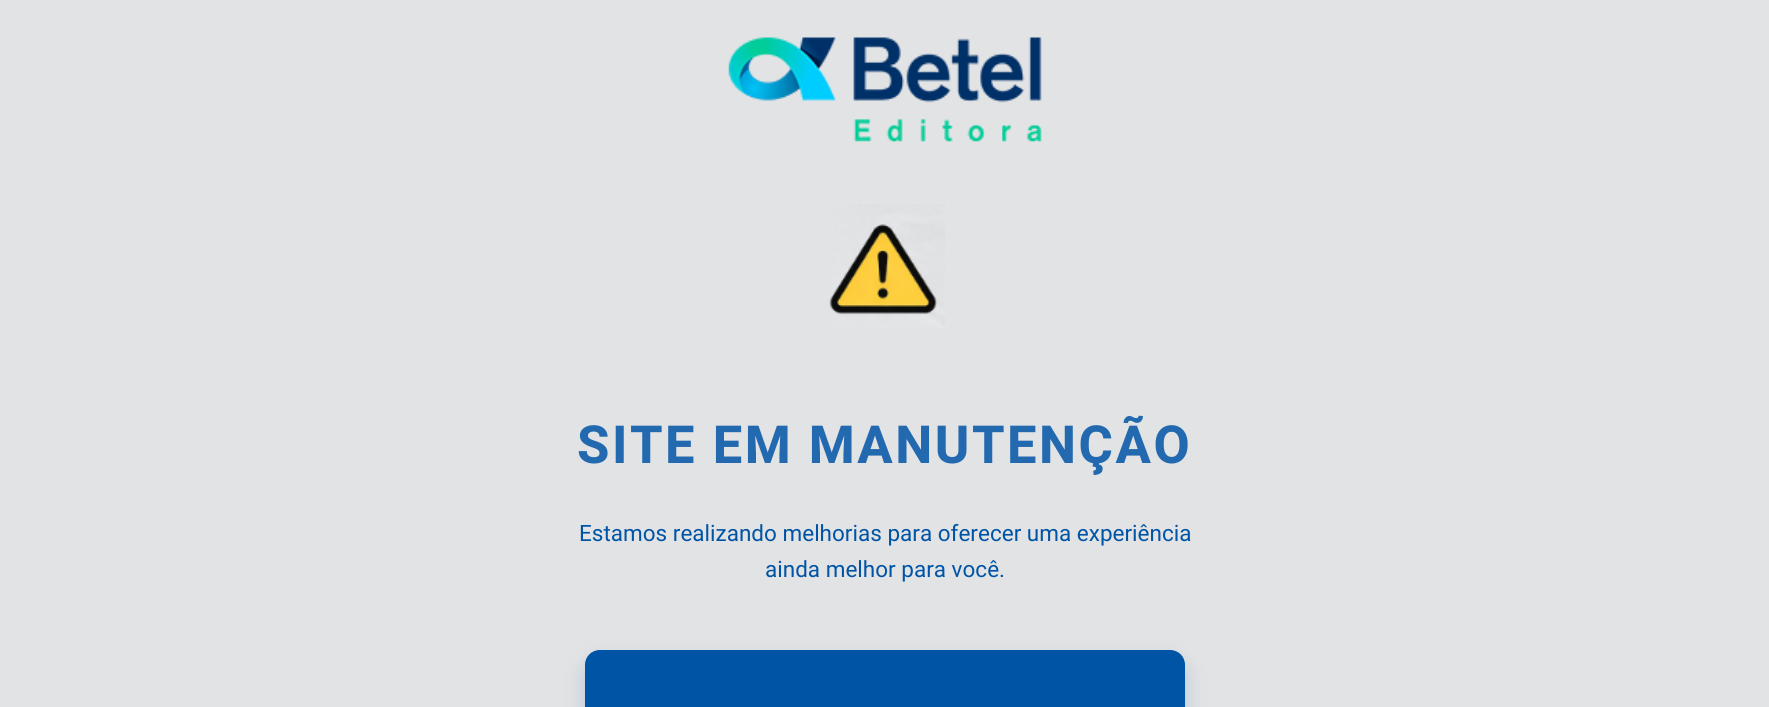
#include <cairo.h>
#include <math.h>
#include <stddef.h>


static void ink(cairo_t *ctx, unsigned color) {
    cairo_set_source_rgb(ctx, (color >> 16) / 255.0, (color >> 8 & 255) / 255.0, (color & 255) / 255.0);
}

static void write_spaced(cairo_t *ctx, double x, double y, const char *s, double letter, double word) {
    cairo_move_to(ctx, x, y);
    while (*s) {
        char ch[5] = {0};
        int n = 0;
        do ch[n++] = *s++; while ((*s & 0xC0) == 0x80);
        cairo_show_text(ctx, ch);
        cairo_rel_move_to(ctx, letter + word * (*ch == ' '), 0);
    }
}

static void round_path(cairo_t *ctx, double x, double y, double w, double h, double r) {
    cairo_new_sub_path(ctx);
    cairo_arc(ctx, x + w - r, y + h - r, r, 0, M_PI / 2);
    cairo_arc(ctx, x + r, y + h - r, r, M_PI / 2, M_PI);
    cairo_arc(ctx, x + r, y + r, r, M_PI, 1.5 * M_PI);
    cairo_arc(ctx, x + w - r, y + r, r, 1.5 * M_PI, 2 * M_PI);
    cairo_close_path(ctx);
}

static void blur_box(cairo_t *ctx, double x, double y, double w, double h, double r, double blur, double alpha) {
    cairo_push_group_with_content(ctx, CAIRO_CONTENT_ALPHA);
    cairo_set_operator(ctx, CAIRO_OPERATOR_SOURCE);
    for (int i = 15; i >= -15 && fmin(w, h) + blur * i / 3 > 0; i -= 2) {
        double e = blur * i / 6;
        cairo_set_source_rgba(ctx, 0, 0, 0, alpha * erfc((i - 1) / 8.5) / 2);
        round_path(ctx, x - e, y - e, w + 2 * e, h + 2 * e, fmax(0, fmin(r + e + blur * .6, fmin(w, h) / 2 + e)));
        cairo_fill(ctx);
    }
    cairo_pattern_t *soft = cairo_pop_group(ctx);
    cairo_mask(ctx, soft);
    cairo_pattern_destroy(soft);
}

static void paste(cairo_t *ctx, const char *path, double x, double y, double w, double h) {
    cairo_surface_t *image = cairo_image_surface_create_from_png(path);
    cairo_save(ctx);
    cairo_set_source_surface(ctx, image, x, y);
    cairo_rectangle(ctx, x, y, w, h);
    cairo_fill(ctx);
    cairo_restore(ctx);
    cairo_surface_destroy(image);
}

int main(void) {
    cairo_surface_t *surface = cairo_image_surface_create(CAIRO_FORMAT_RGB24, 1769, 707);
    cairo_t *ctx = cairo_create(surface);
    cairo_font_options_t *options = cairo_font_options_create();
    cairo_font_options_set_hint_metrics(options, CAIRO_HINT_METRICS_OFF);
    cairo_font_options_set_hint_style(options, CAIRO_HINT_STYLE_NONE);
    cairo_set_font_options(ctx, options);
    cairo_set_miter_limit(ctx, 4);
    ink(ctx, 0xE2E3E4);
    cairo_paint(ctx);
    paste(ctx, "media/1.png", 728, 37, 314, 105);
    paste(ctx, "media/2.png", 829, 204, 116, 124);
    cairo_select_font_face(ctx, "Heebo", CAIRO_FONT_SLANT_NORMAL, CAIRO_FONT_WEIGHT_BOLD);
    cairo_set_font_size(ctx, 52.5);
    ink(ctx, 0x2269AF);
    write_spaced(ctx, 577, 463, "SITE EM MANUTENÇÃO", 2.5, 0);
    cairo_select_font_face(ctx, "Heebo", CAIRO_FONT_SLANT_NORMAL, CAIRO_FONT_WEIGHT_NORMAL);
    cairo_set_font_size(ctx, 22.5);
    ink(ctx, 0x0054A6);
    cairo_move_to(ctx, 579, 541);
    cairo_show_text(ctx, "Estamos realizando melhorias para oferecer uma experiência");
    cairo_move_to(ctx, 765, 577);
    cairo_show_text(ctx, "ainda melhor para você.");
    ink(ctx, 0x0054A6);
    blur_box(ctx, 585, 660, 600, 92, 15, 10, 0.2);
    ink(ctx, 0x0054A6);
    cairo_new_path(ctx);
    cairo_move_to(ctx, 600, 650);
    cairo_line_to(ctx, 1170, 650);
    cairo_curve_to(ctx, 1178.5, 650, 1185, 656.5, 1185, 665);
    cairo_line_to(ctx, 1185, 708);
    cairo_line_to(ctx, 585, 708);
    cairo_line_to(ctx, 585, 665);
    cairo_curve_to(ctx, 585, 656.5, 591.5, 650, 600, 650);
    cairo_close_path(ctx);
    cairo_fill(ctx);
    cairo_surface_write_to_png(surface, "image.png");
    cairo_font_options_destroy(options);
    cairo_destroy(ctx);
    cairo_surface_destroy(surface);
    return 0;
}
